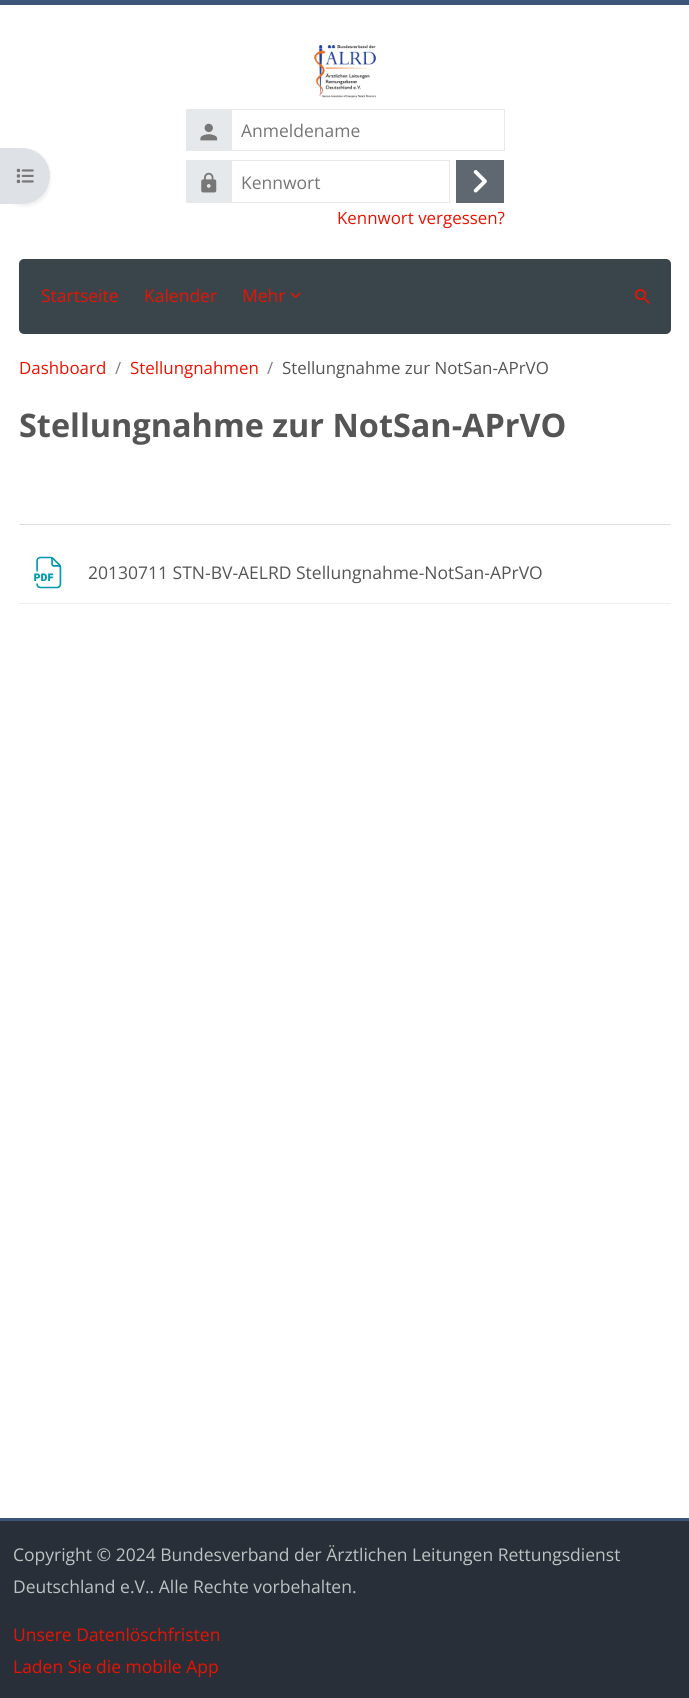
#include <cairo.h>
#include <math.h>
#include <stddef.h>

typedef struct { double x, y; const char *s; } line_t;

static void ink(cairo_t *ctx, unsigned color) {
    cairo_set_source_rgb(ctx, (color >> 16) / 255.0, (color >> 8 & 255) / 255.0, (color & 255) / 255.0);
}

static void round_path(cairo_t *ctx, double x, double y, double w, double h, double r) {
    cairo_new_sub_path(ctx);
    cairo_arc(ctx, x + w - r, y + h - r, r, 0, M_PI / 2);
    cairo_arc(ctx, x + r, y + h - r, r, M_PI / 2, M_PI);
    cairo_arc(ctx, x + r, y + r, r, M_PI, 1.5 * M_PI);
    cairo_arc(ctx, x + w - r, y + r, r, 1.5 * M_PI, 2 * M_PI);
    cairo_close_path(ctx);
}

static void blur_box(cairo_t *ctx, double x, double y, double w, double h, double r, double blur, double alpha) {
    cairo_push_group_with_content(ctx, CAIRO_CONTENT_ALPHA);
    cairo_set_operator(ctx, CAIRO_OPERATOR_SOURCE);
    for (int i = 15; i >= -15 && fmin(w, h) + blur * i / 3 > 0; i -= 2) {
        double e = blur * i / 6;
        cairo_set_source_rgba(ctx, 0, 0, 0, alpha * erfc((i - 1) / 8.5) / 2);
        round_path(ctx, x - e, y - e, w + 2 * e, h + 2 * e, fmax(0, fmin(r + e + blur * .6, fmin(w, h) / 2 + e)));
        cairo_fill(ctx);
    }
    cairo_pattern_t *soft = cairo_pop_group(ctx);
    cairo_mask(ctx, soft);
    cairo_pattern_destroy(soft);
}

static void paste(cairo_t *ctx, const char *path, double x, double y, double w, double h) {
    cairo_surface_t *image = cairo_image_surface_create_from_png(path);
    cairo_save(ctx);
    cairo_set_source_surface(ctx, image, x, y);
    cairo_rectangle(ctx, x, y, w, h);
    cairo_fill(ctx);
    cairo_restore(ctx);
    cairo_surface_destroy(image);
}

int main(void) {
    cairo_surface_t *surface = cairo_image_surface_create(CAIRO_FORMAT_RGB24, 689, 1698);
    cairo_t *ctx = cairo_create(surface);
    cairo_font_options_t *options = cairo_font_options_create();
    cairo_font_options_set_hint_metrics(options, CAIRO_HINT_METRICS_OFF);
    cairo_font_options_set_hint_style(options, CAIRO_HINT_STYLE_NONE);
    cairo_set_font_options(ctx, options);
    cairo_set_miter_limit(ctx, 4);
    ink(ctx, 0xFFFFFF);
    cairo_paint(ctx);
    ink(ctx, 0x000000);
    blur_box(ctx, 0, 150, 50, 56, 28, 2, 0.07);
    ink(ctx, 0xDEE2E6);
    cairo_new_path(ctx);
    cairo_move_to(ctx, 0, 148);
    cairo_line_to(ctx, 22, 148);
    cairo_curve_to(ctx, 37.5, 148, 50, 160.5, 50, 176);
    cairo_curve_to(ctx, 50, 191.5, 37.5, 204, 22, 204);
    cairo_line_to(ctx, 0, 204);
    cairo_close_path(ctx);
    cairo_fill(ctx);
    paste(ctx, "media/1.png", 16, 168, 18, 16);
    ink(ctx, 0x3C5578);
    cairo_rectangle(ctx, 0, 0, 689, 5);
    cairo_fill(ctx);
    paste(ctx, "media/2.png", 314, 45, 62, 53);
    ink(ctx, 0xE6E9EC);
    cairo_rectangle(ctx, 186, 109, 45, 42);
    cairo_fill(ctx);
    paste(ctx, "media/3.png", 200, 123, 18, 18);
    cairo_rectangle(ctx, 231.5, 109.5, 273, 41);
    ink(ctx, 0xE9E9E9);
    cairo_set_line_width(ctx, 1);
    cairo_stroke(ctx);
    cairo_select_font_face(ctx, "Open Sans", CAIRO_FONT_SLANT_NORMAL, CAIRO_FONT_WEIGHT_NORMAL);
    cairo_set_font_size(ctx, 17.5);
    ink(ctx, 0x757575);
    cairo_move_to(ctx, 241, 137);
    cairo_show_text(ctx, "Anmeldename");
    ink(ctx, 0xE6E9EC);
    cairo_rectangle(ctx, 186, 160, 45, 43);
    cairo_fill(ctx);
    paste(ctx, "media/4.png", 201, 172, 16, 21);
    cairo_rectangle(ctx, 231.5, 160.5, 218, 42);
    ink(ctx, 0xE9E9E9);
    cairo_stroke(ctx);
    ink(ctx, 0x757575);
    cairo_move_to(ctx, 241, 189);
    cairo_show_text(ctx, "Kennwort");
    ink(ctx, 0x5F6870);
    cairo_rectangle(ctx, 456, 160, 48, 43);
    cairo_fill(ctx);
    paste(ctx, "media/5.png", 473, 170, 14, 23);
    cairo_set_font_size(ctx, 16.9);
    ink(ctx, 0xEA1200);
    cairo_move_to(ctx, 337, 224);
    cairo_show_text(ctx, "Kennwort vergessen?");
    ink(ctx, 0x3A454B);
    round_path(ctx, 19, 259, 652, 75, 5);
    cairo_fill(ctx);
    cairo_set_font_size(ctx, 17.5);
    ink(ctx, 0xEA1200);
    {
        static const line_t items[] = {
            {41, 302, "Startseite"},
            {144, 302, "Kalender"},
            {242, 302, "Mehr"},
        };
        for (size_t i = 0; i < sizeof items / sizeof *items; i++) {
            cairo_move_to(ctx, items[i].x, items[i].y);
            cairo_show_text(ctx, items[i].s);
        }
    }
    paste(ctx, "media/6.png", 290, 292, 11, 6);
    paste(ctx, "media/7.png", 635, 289, 15, 15);
    cairo_set_font_size(ctx, 16.9);
    cairo_move_to(ctx, 19, 374);
    cairo_show_text(ctx, "Dashboard");
    ink(ctx, 0x808080);
    cairo_move_to(ctx, 115, 374);
    cairo_show_text(ctx, "/");
    ink(ctx, 0xEA1200);
    cairo_move_to(ctx, 130, 374);
    cairo_show_text(ctx, "Stellungnahmen");
    ink(ctx, 0x808080);
    cairo_move_to(ctx, 267, 374);
    cairo_show_text(ctx, "/");
    ink(ctx, 0x555555);
    cairo_move_to(ctx, 282, 374);
    cairo_show_text(ctx, "Stellungnahme zur NotSan-APrVO");
    cairo_select_font_face(ctx, "Open Sans", CAIRO_FONT_SLANT_NORMAL, CAIRO_FONT_WEIGHT_BOLD);
    cairo_set_font_size(ctx, 32.4);
    cairo_move_to(ctx, 19, 437);
    cairo_show_text(ctx, "Stellungnahme zur NotSan-APrVO");
    ink(ctx, 0xDDDDDD);
    cairo_new_path(ctx);
    cairo_move_to(ctx, 671, 525);
    cairo_line_to(ctx, 19, 525);
    cairo_line_to(ctx, 20, 524);
    cairo_line_to(ctx, 670, 524);
    cairo_close_path(ctx);
    cairo_fill(ctx);
    ink(ctx, 0xEEEEEE);
    cairo_rectangle(ctx, 19, 603, 652, 1);
    cairo_fill(ctx);
    paste(ctx, "media/8.png", 34, 556, 28, 33);
    cairo_select_font_face(ctx, "Open Sans", CAIRO_FONT_SLANT_NORMAL, CAIRO_FONT_WEIGHT_NORMAL);
    cairo_set_font_size(ctx, 17.5);
    ink(ctx, 0x555555);
    cairo_move_to(ctx, 88, 579);
    cairo_show_text(ctx, "20130711 STN-BV-AELRD Stellungnahme-NotSan-APrVO");
    ink(ctx, 0x3C5578);
    cairo_rectangle(ctx, 0, 1518, 689, 3);
    cairo_fill(ctx);
    ink(ctx, 0x292F38);
    cairo_rectangle(ctx, 0, 1521, 689, 177);
    cairo_fill(ctx);
    ink(ctx, 0xBDC3C2);
    cairo_move_to(ctx, 13, 1561);
    cairo_show_text(ctx, "Copyright © 2024 Bundesverband der Ärztlichen Leitungen Rettungsdienst");
    cairo_move_to(ctx, 13, 1593);
    cairo_show_text(ctx, "Deutschland e.V.. Alle Rechte vorbehalten.");
    ink(ctx, 0xEA1200);
    cairo_move_to(ctx, 13, 1641);
    cairo_show_text(ctx, "Unsere Datenlöschfristen");
    cairo_move_to(ctx, 13, 1673);
    cairo_show_text(ctx, "Laden Sie die mobile App");
    cairo_surface_write_to_png(surface, "image.png");
    cairo_font_options_destroy(options);
    cairo_destroy(ctx);
    cairo_surface_destroy(surface);
    return 0;
}
